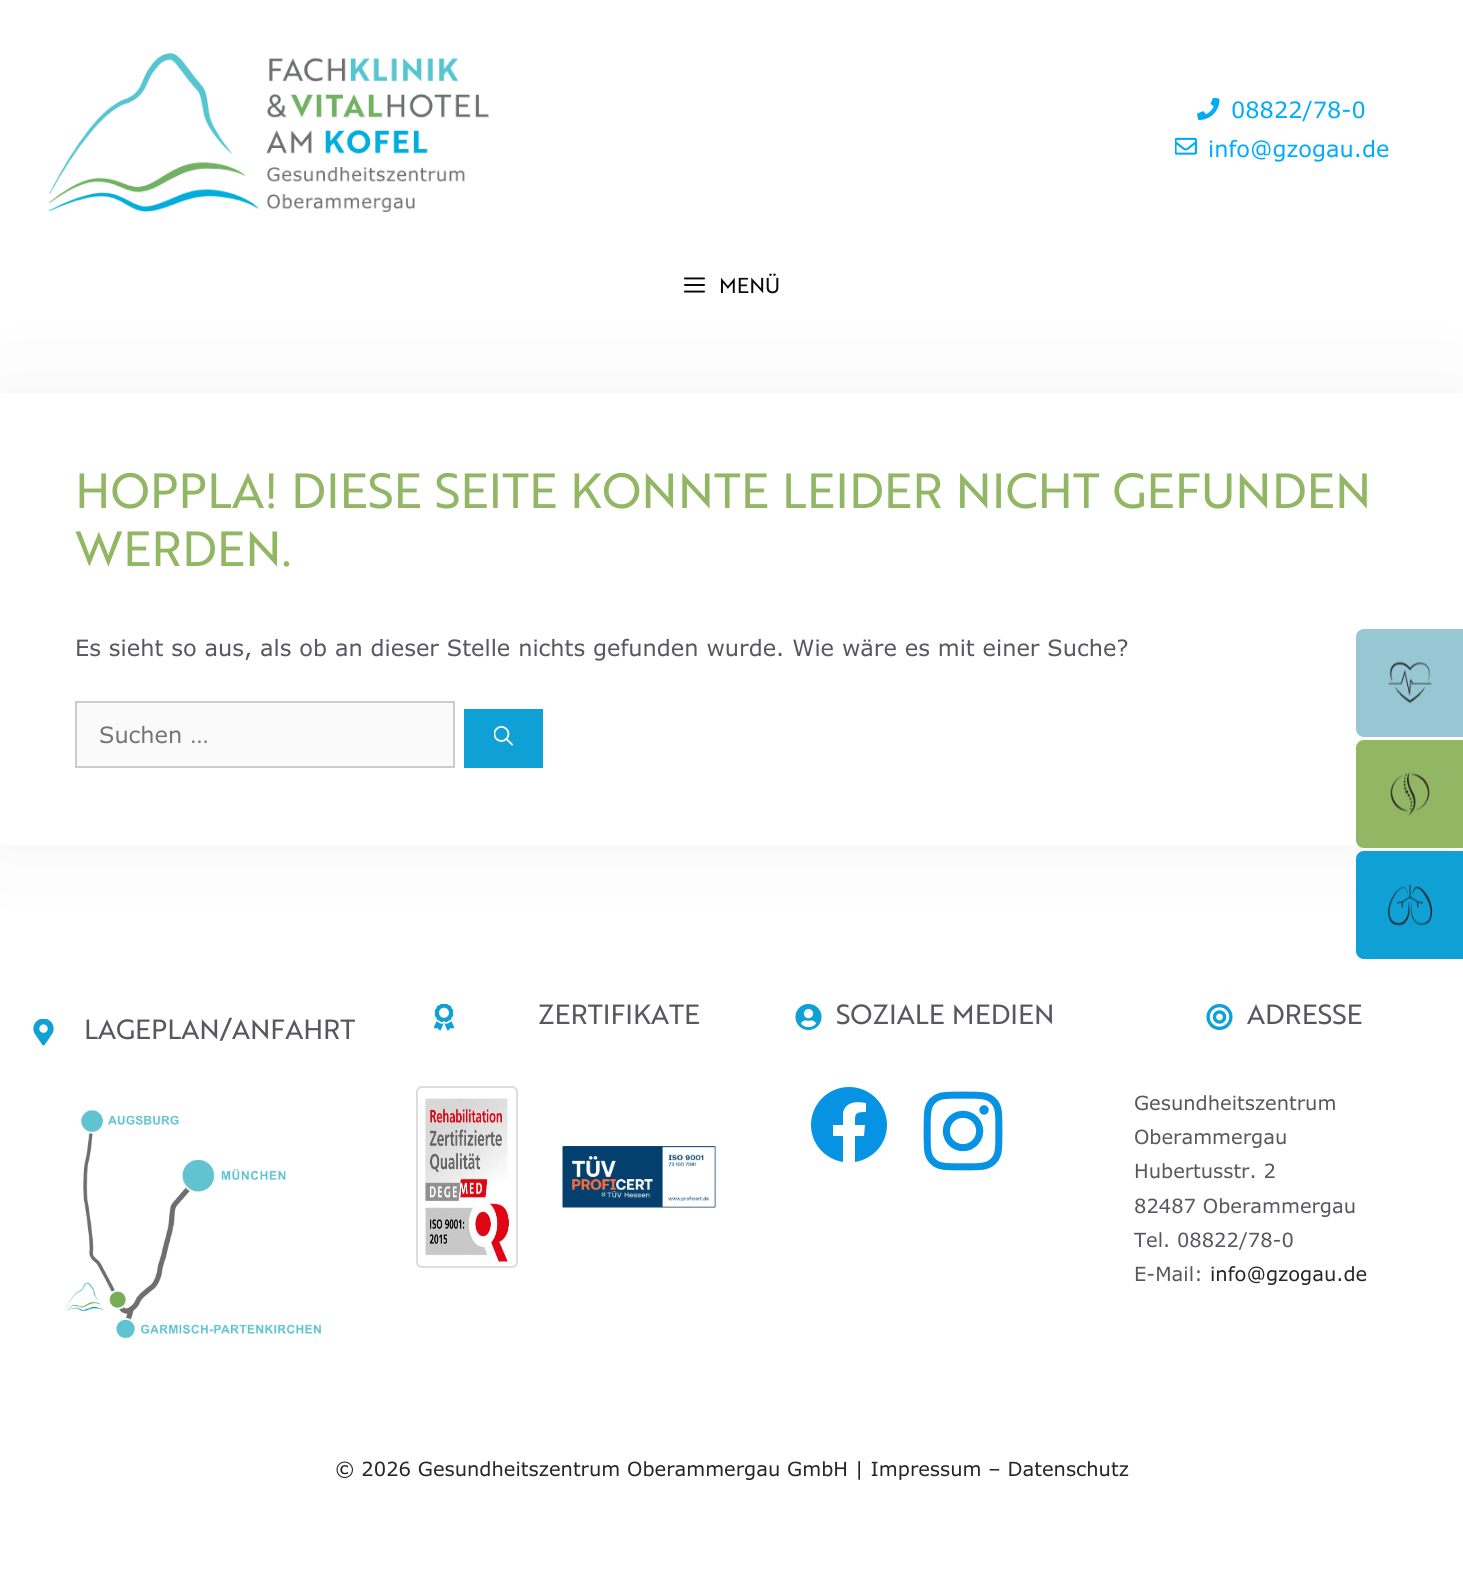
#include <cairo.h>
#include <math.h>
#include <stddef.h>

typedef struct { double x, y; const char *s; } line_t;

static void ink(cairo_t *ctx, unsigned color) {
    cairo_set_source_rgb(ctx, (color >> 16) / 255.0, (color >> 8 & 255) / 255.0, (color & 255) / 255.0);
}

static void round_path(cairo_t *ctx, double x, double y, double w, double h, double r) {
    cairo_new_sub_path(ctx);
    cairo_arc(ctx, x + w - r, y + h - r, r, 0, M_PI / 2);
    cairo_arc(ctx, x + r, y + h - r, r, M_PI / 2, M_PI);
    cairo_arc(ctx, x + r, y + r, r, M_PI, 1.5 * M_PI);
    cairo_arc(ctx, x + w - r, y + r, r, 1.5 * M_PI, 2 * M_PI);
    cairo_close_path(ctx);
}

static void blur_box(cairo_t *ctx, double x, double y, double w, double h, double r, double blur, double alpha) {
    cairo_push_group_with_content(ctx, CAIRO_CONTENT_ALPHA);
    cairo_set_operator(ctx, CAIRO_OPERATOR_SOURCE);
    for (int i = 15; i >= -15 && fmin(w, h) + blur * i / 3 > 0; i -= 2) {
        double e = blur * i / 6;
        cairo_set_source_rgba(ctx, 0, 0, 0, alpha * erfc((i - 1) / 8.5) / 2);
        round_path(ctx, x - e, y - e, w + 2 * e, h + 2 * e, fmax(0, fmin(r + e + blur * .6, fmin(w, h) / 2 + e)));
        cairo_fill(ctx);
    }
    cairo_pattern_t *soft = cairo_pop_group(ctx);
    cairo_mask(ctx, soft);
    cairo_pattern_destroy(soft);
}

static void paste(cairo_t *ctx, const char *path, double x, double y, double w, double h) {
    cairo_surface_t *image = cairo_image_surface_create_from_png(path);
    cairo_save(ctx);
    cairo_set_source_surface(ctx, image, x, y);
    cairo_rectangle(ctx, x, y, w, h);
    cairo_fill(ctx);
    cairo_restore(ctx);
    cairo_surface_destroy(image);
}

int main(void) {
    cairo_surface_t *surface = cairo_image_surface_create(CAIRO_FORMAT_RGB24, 1463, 1580);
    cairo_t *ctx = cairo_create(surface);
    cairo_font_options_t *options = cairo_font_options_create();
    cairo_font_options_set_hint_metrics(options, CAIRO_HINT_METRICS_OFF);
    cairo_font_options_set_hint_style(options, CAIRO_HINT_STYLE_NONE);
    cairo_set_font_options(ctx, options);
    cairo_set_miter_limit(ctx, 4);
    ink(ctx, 0xFFFFFF);
    cairo_paint(ctx);
    paste(ctx, "media/1.png", 48, 53, 441, 160);
    paste(ctx, "media/2.png", 1197, 98, 23, 22);
    cairo_select_font_face(ctx, "Verdana", CAIRO_FONT_SLANT_NORMAL, CAIRO_FONT_WEIGHT_NORMAL);
    cairo_set_font_size(ctx, 22.5);
    ink(ctx, 0x02ABF9);
    cairo_move_to(ctx, 1231, 118);
    cairo_show_text(ctx, "08822/78-0");
    paste(ctx, "media/3.png", 1175, 137, 22, 18);
    cairo_move_to(ctx, 1208, 157);
    cairo_show_text(ctx, "info@gzogau.de");
    ink(ctx, 0x000000);
    blur_box(ctx, 0, 393, 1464, 452, 0, 45, 0.05);
    paste(ctx, "media/4.png", 684, 277, 21, 16);
    cairo_select_font_face(ctx, "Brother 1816", CAIRO_FONT_SLANT_NORMAL, CAIRO_FONT_WEIGHT_NORMAL);
    cairo_set_font_size(ctx, 21);
    ink(ctx, 0x0A0A0A);
    cairo_move_to(ctx, 719, 293);
    cairo_show_text(ctx, "MENÜ");
    ink(ctx, 0xFFFFFF);
    cairo_rectangle(ctx, 0, 393, 1463, 452);
    cairo_fill(ctx);
    cairo_set_font_size(ctx, 48);
    ink(ctx, 0x92B764);
    cairo_move_to(ctx, 75, 508);
    cairo_show_text(ctx, "HOPPLA! DIESE SEITE KONNTE LEIDER NICHT GEFUNDEN");
    cairo_move_to(ctx, 75, 566);
    cairo_show_text(ctx, "WERDEN.");
    cairo_select_font_face(ctx, "Verdana", CAIRO_FONT_SLANT_NORMAL, CAIRO_FONT_WEIGHT_NORMAL);
    cairo_set_font_size(ctx, 22.5);
    ink(ctx, 0x575760);
    cairo_move_to(ctx, 75, 656);
    cairo_show_text(ctx, "Es sieht so aus, als ob an dieser Stelle nichts gefunden wurde. Wie wäre es mit einer Suche?");
    ink(ctx, 0xFAFAFA);
    cairo_rectangle(ctx, 76, 702, 378, 65);
    cairo_fill_preserve(ctx);
    ink(ctx, 0xCCCCCC);
    cairo_stroke(ctx);
    ink(ctx, 0x757575);
    cairo_move_to(ctx, 99, 743);
    cairo_show_text(ctx, "Suchen …");
    ink(ctx, 0x0FA1D5);
    cairo_rectangle(ctx, 464, 709, 79, 59);
    cairo_fill(ctx);
    paste(ctx, "media/5.png", 494, 726, 19, 20);
    ink(ctx, 0x96C7D3);
    cairo_new_path(ctx);
    cairo_move_to(ctx, 1364, 629);
    cairo_line_to(ctx, 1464, 629);
    cairo_line_to(ctx, 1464, 737);
    cairo_line_to(ctx, 1364, 737);
    cairo_curve_to(ctx, 1359.5, 737, 1356, 733.5, 1356, 729);
    cairo_line_to(ctx, 1356, 637);
    cairo_curve_to(ctx, 1356, 632.5, 1359.5, 629, 1364, 629);
    cairo_close_path(ctx);
    cairo_fill(ctx);
    paste(ctx, "media/6.png", 1388, 661, 44, 43);
    ink(ctx, 0x92B764);
    cairo_new_path(ctx);
    cairo_move_to(ctx, 1364, 740);
    cairo_line_to(ctx, 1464, 740);
    cairo_line_to(ctx, 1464, 848);
    cairo_line_to(ctx, 1364, 848);
    cairo_curve_to(ctx, 1359.5, 848, 1356, 844.5, 1356, 840);
    cairo_line_to(ctx, 1356, 748);
    cairo_curve_to(ctx, 1356, 743.5, 1359.5, 740, 1364, 740);
    cairo_close_path(ctx);
    cairo_fill(ctx);
    paste(ctx, "media/7.png", 1390, 771, 40, 45);
    ink(ctx, 0x0FA1D5);
    cairo_new_path(ctx);
    cairo_move_to(ctx, 1364, 851);
    cairo_line_to(ctx, 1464, 851);
    cairo_line_to(ctx, 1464, 959);
    cairo_line_to(ctx, 1364, 959);
    cairo_curve_to(ctx, 1359.5, 959, 1356, 955.5, 1356, 951);
    cairo_line_to(ctx, 1356, 859);
    cairo_curve_to(ctx, 1356, 854.5, 1359.5, 851, 1364, 851);
    cairo_close_path(ctx);
    cairo_fill(ctx);
    paste(ctx, "media/8.png", 1388, 883, 45, 43);
    paste(ctx, "media/9.png", 33, 1019, 21, 27);
    cairo_select_font_face(ctx, "Brother 1816", CAIRO_FONT_SLANT_NORMAL, CAIRO_FONT_WEIGHT_NORMAL);
    cairo_set_font_size(ctx, 27);
    ink(ctx, 0x575760);
    cairo_move_to(ctx, 84, 1039);
    cairo_show_text(ctx, "LAGEPLAN/ANFAHRT");
    paste(ctx, "media/10.png", 66, 1110, 255, 229);
    paste(ctx, "media/11.png", 433, 1004, 22, 27);
    cairo_move_to(ctx, 538, 1024);
    cairo_show_text(ctx, "ZERTIFIKATE");
    round_path(ctx, 417, 1087, 100, 180, 5);
    ink(ctx, 0xDDDDDD);
    cairo_stroke(ctx);
    paste(ctx, "media/12.png", 424, 1098, 88, 164);
    paste(ctx, "media/13.png", 562, 1146, 154, 62);
    paste(ctx, "media/14.png", 795, 1004, 27, 27);
    ink(ctx, 0x575760);
    cairo_move_to(ctx, 836, 1024);
    cairo_show_text(ctx, "SOZIALE MEDIEN");
    ink(ctx, 0x0693E3);
    cairo_new_path(ctx);
    cairo_move_to(ctx, 887, 1125);
    cairo_curve_to(ctx, 887, 1104, 870, 1087, 849, 1087);
    cairo_curve_to(ctx, 828, 1087, 811, 1104, 811, 1125);
    cairo_curve_to(ctx, 811, 1144, 825, 1159, 843, 1162);
    cairo_line_to(ctx, 843, 1136);
    cairo_line_to(ctx, 833, 1136);
    cairo_line_to(ctx, 833, 1125);
    cairo_line_to(ctx, 843, 1125);
    cairo_line_to(ctx, 843, 1113);
    cairo_curve_to(ctx, 845, 1102, 856, 1101, 866, 1103);
    cairo_line_to(ctx, 866, 1112);
    cairo_curve_to(ctx, 854, 1112, 855, 1114, 855, 1125);
    cairo_line_to(ctx, 865, 1125);
    cairo_line_to(ctx, 864, 1136);
    cairo_line_to(ctx, 855, 1136);
    cairo_line_to(ctx, 855, 1162);
    cairo_curve_to(ctx, 873, 1159, 887, 1144, 887, 1125);
    cairo_close_path(ctx);
    cairo_fill(ctx);
    paste(ctx, "media/15.png", 923, 1091, 80, 80);
    paste(ctx, "media/16.png", 1206, 1004, 27, 27);
    ink(ctx, 0x575760);
    cairo_move_to(ctx, 1247, 1024);
    cairo_show_text(ctx, "ADRESSE");
    cairo_select_font_face(ctx, "Verdana", CAIRO_FONT_SLANT_NORMAL, CAIRO_FONT_WEIGHT_NORMAL);
    cairo_set_font_size(ctx, 19.5);
    {
        static const line_t items[] = {
            {1134, 1110, "Gesundheitszentrum"},
            {1134, 1144, "Oberammergau"},
            {1134, 1178, "Hubertusstr. 2"},
            {1134, 1213, "82487 Oberammergau"},
            {1134, 1247, "Tel. 08822/78-0"},
            {1134, 1281, "E-Mail:"},
        };
        for (size_t i = 0; i < sizeof items / sizeof *items; i++) {
            cairo_move_to(ctx, items[i].x, items[i].y);
            cairo_show_text(ctx, items[i].s);
        }
    }
    ink(ctx, 0x262626);
    cairo_move_to(ctx, 1210, 1281);
    cairo_show_text(ctx, "info@gzogau.de");
    cairo_move_to(ctx, 335, 1476);
    cairo_show_text(ctx, "© 2026 Gesundheitszentrum Oberammergau GmbH | Impressum – Datenschutz");
    cairo_surface_write_to_png(surface, "image.png");
    cairo_font_options_destroy(options);
    cairo_destroy(ctx);
    cairo_surface_destroy(surface);
    return 0;
}
